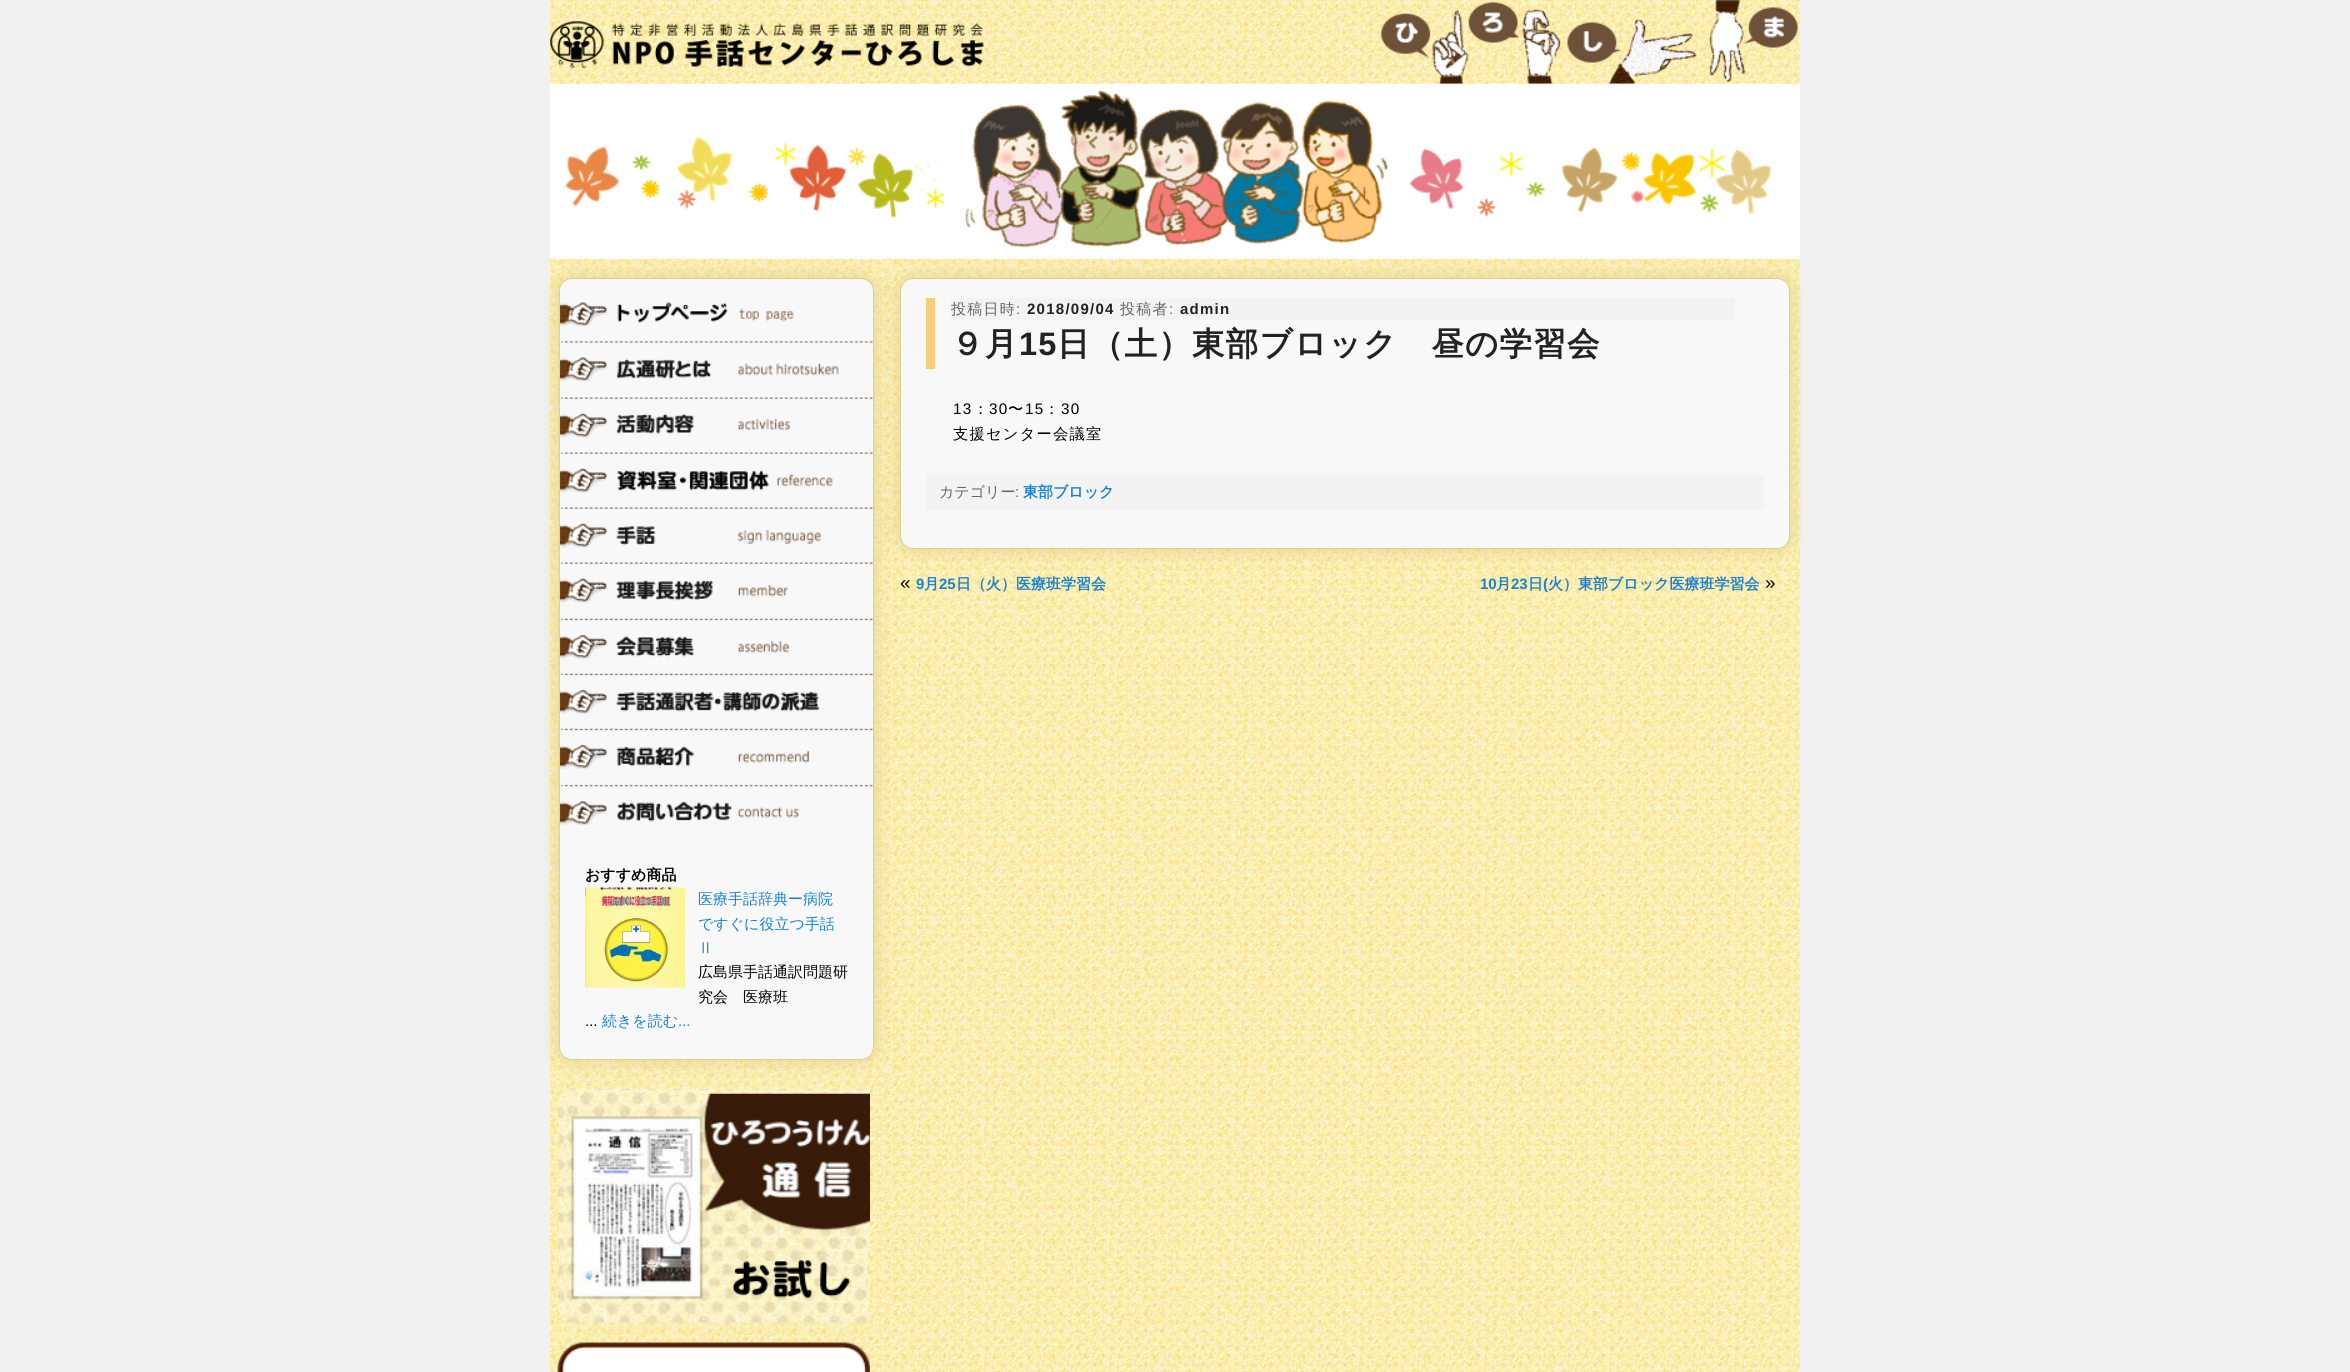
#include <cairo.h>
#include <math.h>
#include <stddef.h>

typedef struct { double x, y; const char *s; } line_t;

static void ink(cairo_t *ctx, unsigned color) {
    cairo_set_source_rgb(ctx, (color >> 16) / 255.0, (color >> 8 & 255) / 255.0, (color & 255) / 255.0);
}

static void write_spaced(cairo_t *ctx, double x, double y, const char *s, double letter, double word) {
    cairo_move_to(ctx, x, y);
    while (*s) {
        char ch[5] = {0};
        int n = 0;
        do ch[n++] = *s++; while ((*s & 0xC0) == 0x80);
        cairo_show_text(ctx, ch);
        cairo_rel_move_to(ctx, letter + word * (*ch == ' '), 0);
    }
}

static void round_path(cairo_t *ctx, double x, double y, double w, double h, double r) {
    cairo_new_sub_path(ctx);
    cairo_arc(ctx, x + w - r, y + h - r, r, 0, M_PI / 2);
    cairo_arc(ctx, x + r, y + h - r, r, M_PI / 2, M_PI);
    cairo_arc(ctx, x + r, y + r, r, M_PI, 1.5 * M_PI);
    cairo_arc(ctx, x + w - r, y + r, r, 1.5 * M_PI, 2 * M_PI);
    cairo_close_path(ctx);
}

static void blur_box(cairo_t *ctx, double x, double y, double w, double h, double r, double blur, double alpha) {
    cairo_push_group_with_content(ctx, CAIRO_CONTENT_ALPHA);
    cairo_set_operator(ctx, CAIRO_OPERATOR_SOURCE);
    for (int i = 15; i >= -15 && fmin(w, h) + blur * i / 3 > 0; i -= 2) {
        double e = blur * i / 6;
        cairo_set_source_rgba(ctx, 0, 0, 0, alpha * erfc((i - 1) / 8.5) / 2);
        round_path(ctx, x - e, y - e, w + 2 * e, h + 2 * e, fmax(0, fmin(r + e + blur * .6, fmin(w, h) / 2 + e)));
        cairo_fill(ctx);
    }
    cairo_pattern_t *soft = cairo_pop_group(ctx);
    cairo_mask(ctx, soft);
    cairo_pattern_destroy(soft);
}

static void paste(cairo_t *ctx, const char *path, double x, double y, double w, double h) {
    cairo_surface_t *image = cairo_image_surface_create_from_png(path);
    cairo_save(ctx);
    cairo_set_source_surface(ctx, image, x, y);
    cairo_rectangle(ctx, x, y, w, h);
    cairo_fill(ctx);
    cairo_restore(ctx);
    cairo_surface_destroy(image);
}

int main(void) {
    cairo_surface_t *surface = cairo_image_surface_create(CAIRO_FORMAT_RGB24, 2350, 1372);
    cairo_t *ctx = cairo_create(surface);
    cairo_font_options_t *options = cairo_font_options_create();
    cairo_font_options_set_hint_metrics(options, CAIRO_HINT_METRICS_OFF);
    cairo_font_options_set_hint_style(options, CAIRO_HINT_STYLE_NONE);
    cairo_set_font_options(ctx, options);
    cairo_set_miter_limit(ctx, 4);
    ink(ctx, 0xF1F1F1);
    cairo_paint(ctx);
    paste(ctx, "media/1.png", 550, 0, 1250, 1372);
    paste(ctx, "media/2.png", 1381, 0, 417, 84);
    paste(ctx, "media/3.png", 550, 21, 434, 48);
    ink(ctx, 0xE0D092);
    blur_box(ctx, 900, 278, 890, 271, 13, 9.5, 1);
    ink(ctx, 0xF8F8F8);
    round_path(ctx, 900.5, 278.5, 889, 270, 12.5);
    cairo_fill_preserve(ctx);
    ink(ctx, 0xE0D092);
    cairo_set_line_width(ctx, 1);
    cairo_stroke(ctx);
    ink(ctx, 0xE0D092);
    blur_box(ctx, 559, 278, 315, 782, 13, 9.5, 1);
    paste(ctx, "media/4.png", 550, 83, 1250, 176);
    ink(ctx, 0xF7CF7A);
    cairo_rectangle(ctx, 926, 298, 9, 71);
    cairo_fill(ctx);
    ink(ctx, 0xF3F3F3);
    cairo_rectangle(ctx, 951, 298, 784, 22);
    cairo_fill(ctx);
    cairo_select_font_face(ctx, "WenQuanYi Zen Hei Medium", CAIRO_FONT_SLANT_NORMAL, CAIRO_FONT_WEIGHT_NORMAL);
    cairo_set_font_size(ctx, 15);
    ink(ctx, 0x666666);
    write_spaced(ctx, 951, 314, "投稿日時", 1.25, 0);
    cairo_select_font_face(ctx, "Liberation Sans", CAIRO_FONT_SLANT_NORMAL, CAIRO_FONT_WEIGHT_NORMAL);
    write_spaced(ctx, 1016, 314, ":", 1.25, 0);
    cairo_select_font_face(ctx, "Liberation Sans", CAIRO_FONT_SLANT_NORMAL, CAIRO_FONT_WEIGHT_BOLD);
    ink(ctx, 0x222222);
    write_spaced(ctx, 1027, 314, "2018/09/04", 1.25, 0);
    cairo_select_font_face(ctx, "WenQuanYi Zen Hei Medium", CAIRO_FONT_SLANT_NORMAL, CAIRO_FONT_WEIGHT_NORMAL);
    ink(ctx, 0x666666);
    write_spaced(ctx, 1120, 314, "投稿者", 1.25, 0);
    cairo_select_font_face(ctx, "Liberation Sans", CAIRO_FONT_SLANT_NORMAL, CAIRO_FONT_WEIGHT_NORMAL);
    write_spaced(ctx, 1169, 314, ":", 1.25, 0);
    cairo_select_font_face(ctx, "Liberation Sans", CAIRO_FONT_SLANT_NORMAL, CAIRO_FONT_WEIGHT_BOLD);
    ink(ctx, 0x222222);
    write_spaced(ctx, 1180, 314, "admin", 1.25, 0);
    cairo_select_font_face(ctx, "WenQuanYi Zen Hei", CAIRO_FONT_SLANT_NORMAL, CAIRO_FONT_WEIGHT_BOLD);
    cairo_set_font_size(ctx, 32.5);
    write_spaced(ctx, 951, 355, "９月", 1.25, 0);
    cairo_select_font_face(ctx, "Liberation Sans", CAIRO_FONT_SLANT_NORMAL, CAIRO_FONT_WEIGHT_BOLD);
    write_spaced(ctx, 1019, 355, "15", 1.25, 0);
    cairo_select_font_face(ctx, "WenQuanYi Zen Hei", CAIRO_FONT_SLANT_NORMAL, CAIRO_FONT_WEIGHT_BOLD);
    write_spaced(ctx, 1057, 355, "日（土）東部ブロック　昼の学習会", 1.25, 0);
    cairo_select_font_face(ctx, "Liberation Sans", CAIRO_FONT_SLANT_NORMAL, CAIRO_FONT_WEIGHT_NORMAL);
    cairo_set_font_size(ctx, 15.25);
    ink(ctx, 0x000000);
    write_spaced(ctx, 953, 414, "13", 1.25, 0);
    cairo_select_font_face(ctx, "WenQuanYi Zen Hei Medium", CAIRO_FONT_SLANT_NORMAL, CAIRO_FONT_WEIGHT_NORMAL);
    write_spaced(ctx, 973, 414, "：", 1.25, 0);
    cairo_select_font_face(ctx, "Liberation Sans", CAIRO_FONT_SLANT_NORMAL, CAIRO_FONT_WEIGHT_NORMAL);
    write_spaced(ctx, 989, 414, "30", 1.25, 0);
    cairo_select_font_face(ctx, "WenQuanYi Zen Hei Medium", CAIRO_FONT_SLANT_NORMAL, CAIRO_FONT_WEIGHT_NORMAL);
    write_spaced(ctx, 1008, 414, "〜", 1.25, 0);
    cairo_select_font_face(ctx, "Liberation Sans", CAIRO_FONT_SLANT_NORMAL, CAIRO_FONT_WEIGHT_NORMAL);
    write_spaced(ctx, 1025, 414, "15", 1.25, 0);
    cairo_select_font_face(ctx, "WenQuanYi Zen Hei Medium", CAIRO_FONT_SLANT_NORMAL, CAIRO_FONT_WEIGHT_NORMAL);
    write_spaced(ctx, 1044, 414, "：", 1.25, 0);
    cairo_select_font_face(ctx, "Liberation Sans", CAIRO_FONT_SLANT_NORMAL, CAIRO_FONT_WEIGHT_NORMAL);
    write_spaced(ctx, 1061, 414, "30", 1.25, 0);
    cairo_select_font_face(ctx, "WenQuanYi Zen Hei Medium", CAIRO_FONT_SLANT_NORMAL, CAIRO_FONT_WEIGHT_NORMAL);
    write_spaced(ctx, 953, 439, "支援センター会議室", 1.25, 0);
    ink(ctx, 0xF3F3F3);
    cairo_rectangle(ctx, 926, 475, 838, 35);
    cairo_fill(ctx);
    cairo_set_font_size(ctx, 15);
    ink(ctx, 0x666666);
    cairo_move_to(ctx, 939, 497);
    cairo_show_text(ctx, "カテゴリー");
    cairo_select_font_face(ctx, "Liberation Sans", CAIRO_FONT_SLANT_NORMAL, CAIRO_FONT_WEIGHT_NORMAL);
    cairo_move_to(ctx, 1015, 497);
    cairo_show_text(ctx, ":");
    cairo_select_font_face(ctx, "WenQuanYi Zen Hei", CAIRO_FONT_SLANT_NORMAL, CAIRO_FONT_WEIGHT_BOLD);
    ink(ctx, 0x1982D1);
    cairo_move_to(ctx, 1023, 497);
    cairo_show_text(ctx, "東部ブロック");
    cairo_select_font_face(ctx, "Liberation Sans", CAIRO_FONT_SLANT_NORMAL, CAIRO_FONT_WEIGHT_NORMAL);
    cairo_set_font_size(ctx, 19);
    ink(ctx, 0x000000);
    cairo_move_to(ctx, 900, 589);
    cairo_show_text(ctx, "«");
    cairo_select_font_face(ctx, "Liberation Sans", CAIRO_FONT_SLANT_NORMAL, CAIRO_FONT_WEIGHT_BOLD);
    cairo_set_font_size(ctx, 15);
    ink(ctx, 0x1982D1);
    cairo_move_to(ctx, 916, 589);
    cairo_show_text(ctx, "9");
    cairo_select_font_face(ctx, "WenQuanYi Zen Hei", CAIRO_FONT_SLANT_NORMAL, CAIRO_FONT_WEIGHT_BOLD);
    cairo_move_to(ctx, 924, 589);
    cairo_show_text(ctx, "月");
    cairo_select_font_face(ctx, "Liberation Sans", CAIRO_FONT_SLANT_NORMAL, CAIRO_FONT_WEIGHT_BOLD);
    cairo_move_to(ctx, 939, 589);
    cairo_show_text(ctx, "25");
    cairo_select_font_face(ctx, "WenQuanYi Zen Hei", CAIRO_FONT_SLANT_NORMAL, CAIRO_FONT_WEIGHT_BOLD);
    cairo_move_to(ctx, 956, 589);
    cairo_show_text(ctx, "日（火）医療班学習会");
    cairo_select_font_face(ctx, "Liberation Sans", CAIRO_FONT_SLANT_NORMAL, CAIRO_FONT_WEIGHT_BOLD);
    cairo_move_to(ctx, 1480, 589);
    cairo_show_text(ctx, "10");
    cairo_select_font_face(ctx, "WenQuanYi Zen Hei", CAIRO_FONT_SLANT_NORMAL, CAIRO_FONT_WEIGHT_BOLD);
    cairo_move_to(ctx, 1496, 589);
    cairo_show_text(ctx, "月");
    cairo_select_font_face(ctx, "Liberation Sans", CAIRO_FONT_SLANT_NORMAL, CAIRO_FONT_WEIGHT_BOLD);
    cairo_move_to(ctx, 1511, 589);
    cairo_show_text(ctx, "23");
    cairo_select_font_face(ctx, "WenQuanYi Zen Hei", CAIRO_FONT_SLANT_NORMAL, CAIRO_FONT_WEIGHT_BOLD);
    cairo_move_to(ctx, 1528, 589);
    cairo_show_text(ctx, "日");
    cairo_select_font_face(ctx, "Liberation Sans", CAIRO_FONT_SLANT_NORMAL, CAIRO_FONT_WEIGHT_BOLD);
    cairo_move_to(ctx, 1543, 589);
    cairo_show_text(ctx, "(");
    cairo_select_font_face(ctx, "WenQuanYi Zen Hei", CAIRO_FONT_SLANT_NORMAL, CAIRO_FONT_WEIGHT_BOLD);
    cairo_move_to(ctx, 1548, 589);
    cairo_show_text(ctx, "火）東部ブロック医療班学習会");
    cairo_select_font_face(ctx, "Liberation Sans", CAIRO_FONT_SLANT_NORMAL, CAIRO_FONT_WEIGHT_NORMAL);
    cairo_set_font_size(ctx, 19);
    ink(ctx, 0x000000);
    cairo_move_to(ctx, 1765, 589);
    cairo_show_text(ctx, "»");
    ink(ctx, 0xF8F8F8);
    round_path(ctx, 559.5, 278.5, 314, 781, 12.5);
    cairo_fill_preserve(ctx);
    ink(ctx, 0xE0D092);
    cairo_stroke(ctx);
    paste(ctx, "media/5.png", 560, 301, 48, 26);
    paste(ctx, "media/6.png", 617, 302, 177, 21);
    paste(ctx, "media/7.png", 560, 340, 313, 4);
    paste(ctx, "media/5.png", 560, 356, 48, 26);
    paste(ctx, "media/8.png", 616, 358, 223, 21);
    paste(ctx, "media/9.png", 560, 396, 313, 4);
    paste(ctx, "media/10.png", 560, 413, 48, 25);
    paste(ctx, "media/11.png", 616, 413, 175, 21);
    paste(ctx, "media/9.png", 560, 451, 313, 4);
    paste(ctx, "media/10.png", 560, 468, 48, 25);
    paste(ctx, "media/12.png", 617, 470, 216, 21);
    paste(ctx, "media/9.png", 560, 506, 313, 4);
    paste(ctx, "media/10.png", 560, 523, 48, 25);
    paste(ctx, "media/13.png", 616, 526, 206, 20);
    paste(ctx, "media/9.png", 560, 561, 313, 4);
    paste(ctx, "media/14.png", 560, 578, 48, 25);
    paste(ctx, "media/15.png", 616, 580, 172, 21);
    paste(ctx, "media/16.png", 560, 618, 313, 3);
    paste(ctx, "media/17.png", 560, 634, 48, 25);
    paste(ctx, "media/18.png", 616, 636, 173, 21);
    paste(ctx, "media/16.png", 560, 673, 313, 3);
    paste(ctx, "media/17.png", 560, 689, 48, 25);
    paste(ctx, "media/19.png", 616, 691, 203, 21);
    paste(ctx, "media/16.png", 560, 728, 313, 3);
    paste(ctx, "media/17.png", 560, 744, 48, 25);
    paste(ctx, "media/20.png", 616, 746, 193, 21);
    paste(ctx, "media/21.png", 560, 784, 313, 3);
    paste(ctx, "media/22.png", 560, 800, 48, 25);
    paste(ctx, "media/23.png", 617, 801, 182, 21);
    cairo_select_font_face(ctx, "WenQuanYi Zen Hei", CAIRO_FONT_SLANT_NORMAL, CAIRO_FONT_WEIGHT_BOLD);
    cairo_set_font_size(ctx, 15);
    ink(ctx, 0x000000);
    cairo_move_to(ctx, 585, 880);
    cairo_show_text(ctx, "おすすめ商品");
    paste(ctx, "media/24.png", 585, 887, 100, 101);
    cairo_select_font_face(ctx, "WenQuanYi Zen Hei Medium", CAIRO_FONT_SLANT_NORMAL, CAIRO_FONT_WEIGHT_NORMAL);
    ink(ctx, 0x1982D1);
    {
        static const line_t items[] = {
            {698, 904, "医療手話辞典ー病院"},
            {698, 929, "ですぐに役立つ手話"},
            {698, 953, "Ⅱ"},
        };
        for (size_t i = 0; i < sizeof items / sizeof *items; i++) {
            cairo_move_to(ctx, items[i].x, items[i].y);
            cairo_show_text(ctx, items[i].s);
        }
    }
    ink(ctx, 0x000000);
    cairo_move_to(ctx, 698, 977);
    cairo_show_text(ctx, "広島県手話通訳問題研");
    cairo_move_to(ctx, 698, 1002);
    cairo_show_text(ctx, "究会　医療班");
    cairo_select_font_face(ctx, "Liberation Sans", CAIRO_FONT_SLANT_NORMAL, CAIRO_FONT_WEIGHT_NORMAL);
    cairo_move_to(ctx, 585, 1026);
    cairo_show_text(ctx, "...");
    cairo_select_font_face(ctx, "WenQuanYi Zen Hei Medium", CAIRO_FONT_SLANT_NORMAL, CAIRO_FONT_WEIGHT_NORMAL);
    ink(ctx, 0x1982D1);
    cairo_move_to(ctx, 602, 1026);
    cairo_show_text(ctx, "続きを読む");
    cairo_select_font_face(ctx, "Liberation Sans", CAIRO_FONT_SLANT_NORMAL, CAIRO_FONT_WEIGHT_NORMAL);
    cairo_move_to(ctx, 678, 1026);
    cairo_show_text(ctx, "...");
    paste(ctx, "media/25.png", 557, 1078, 313, 257);
    paste(ctx, "media/26.png", 557, 1342, 313, 30);
    cairo_surface_write_to_png(surface, "image.png");
    cairo_font_options_destroy(options);
    cairo_destroy(ctx);
    cairo_surface_destroy(surface);
    return 0;
}
